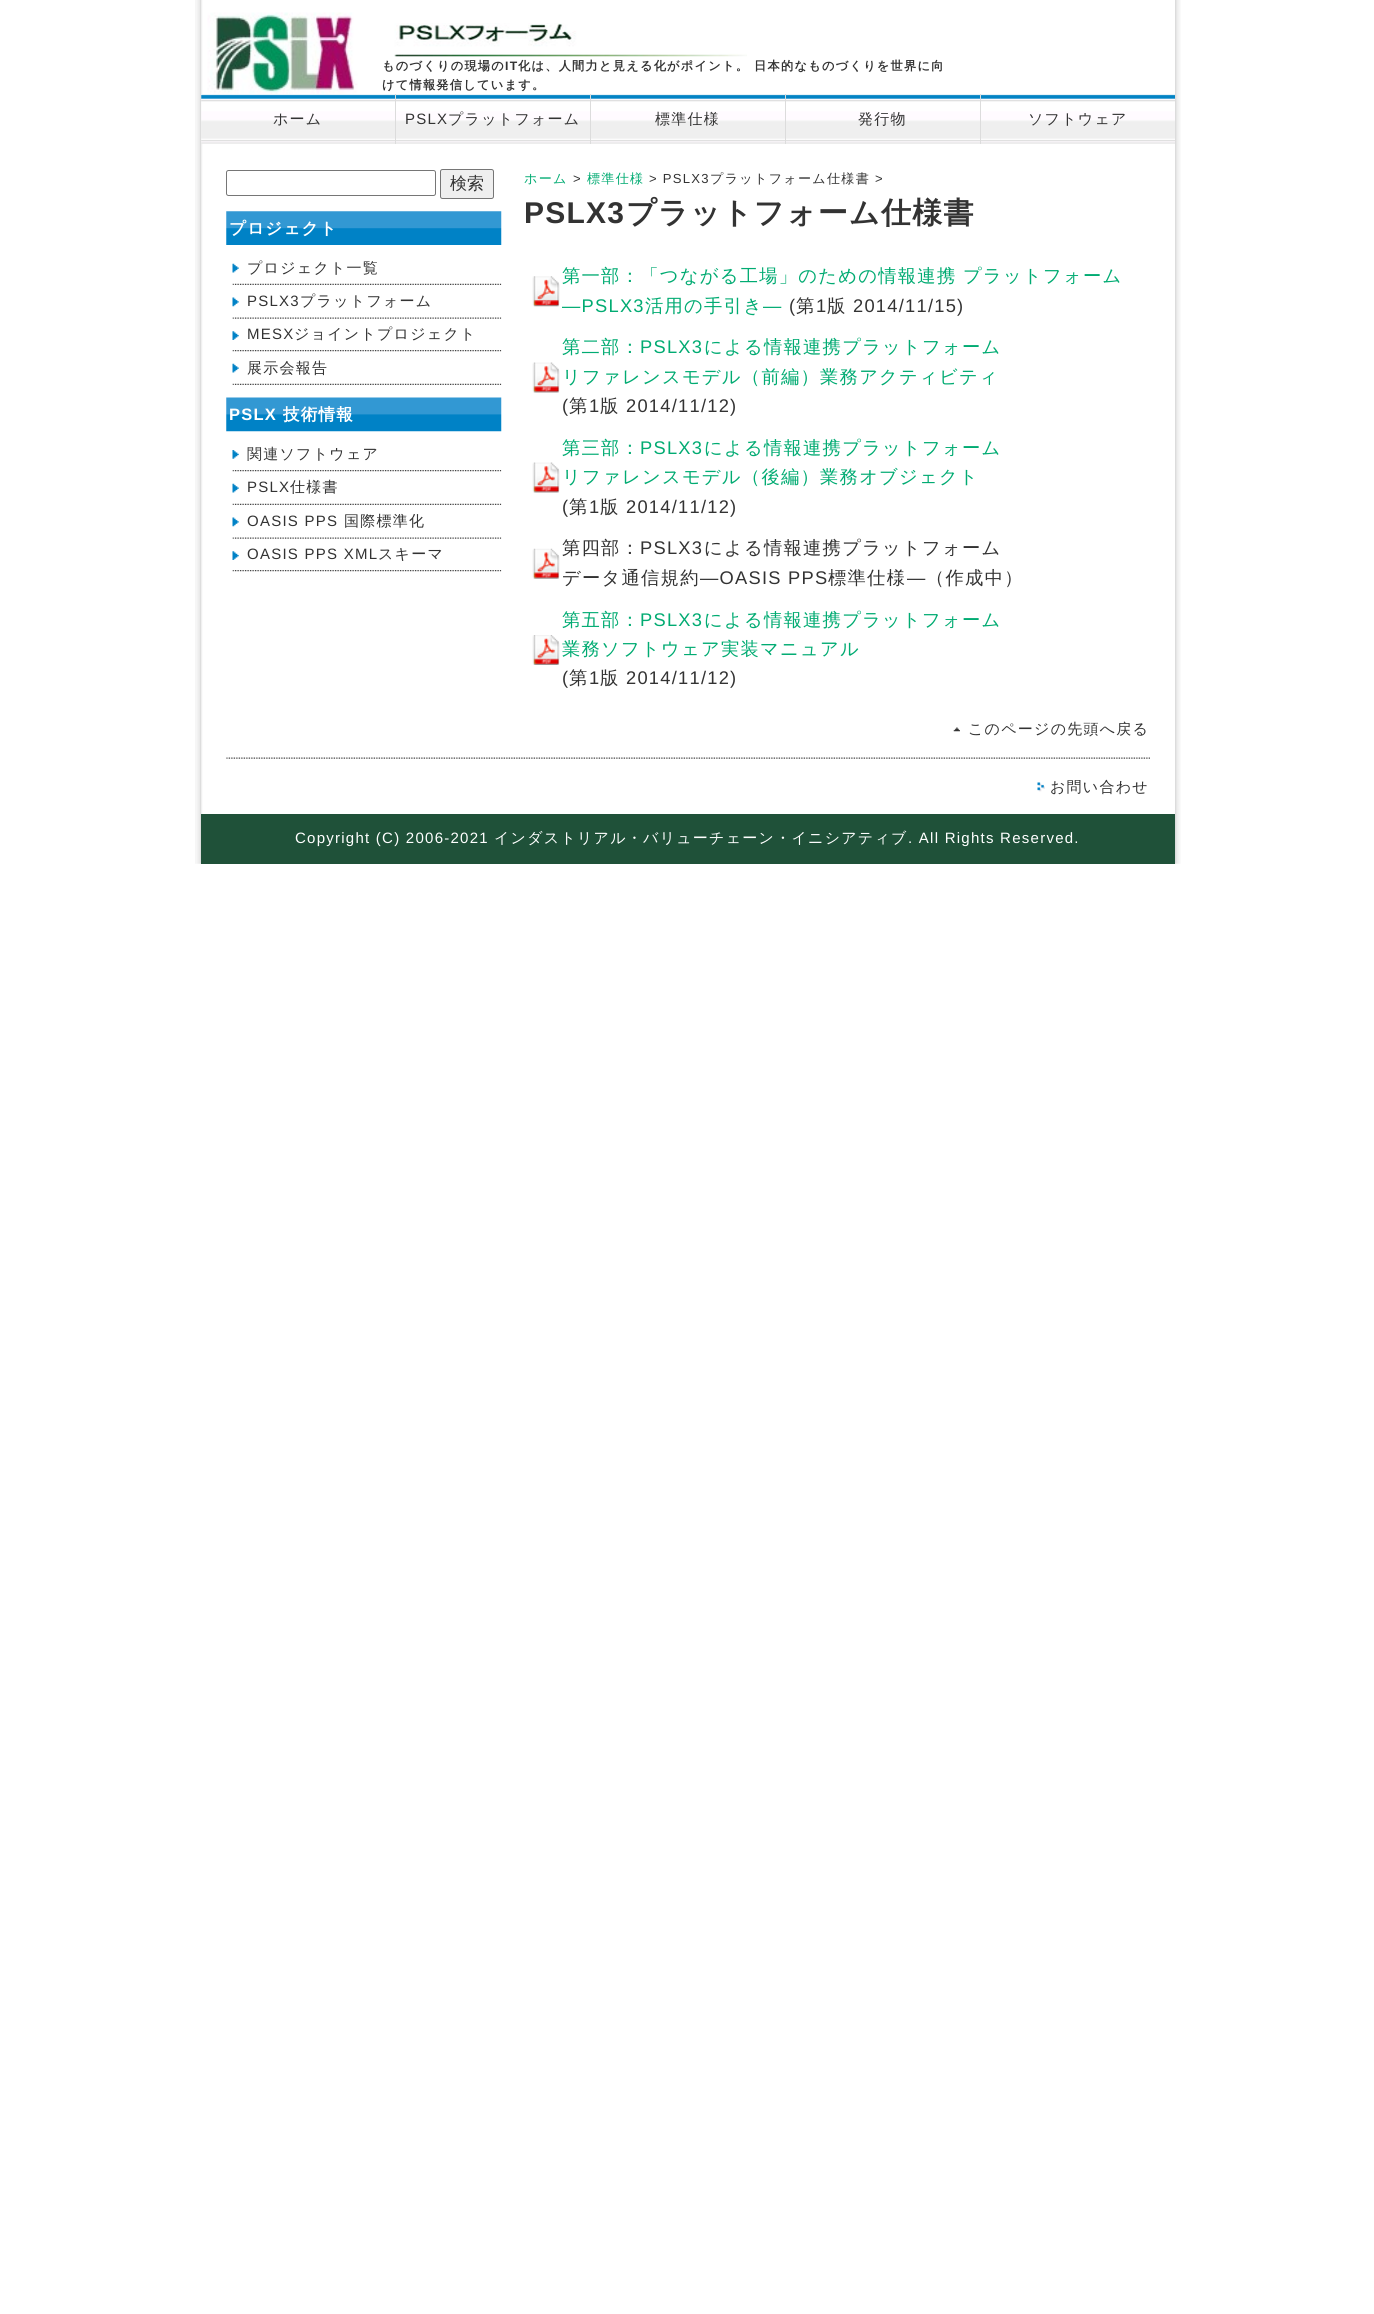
#include <cairo.h>
#include <math.h>
#include <stddef.h>


static void ink(cairo_t *ctx, unsigned color) {
    cairo_set_source_rgb(ctx, (color >> 16) / 255.0, (color >> 8 & 255) / 255.0, (color & 255) / 255.0);
}

static void write_spaced(cairo_t *ctx, double x, double y, const char *s, double letter, double word) {
    cairo_move_to(ctx, x, y);
    while (*s) {
        char ch[5] = {0};
        int n = 0;
        do ch[n++] = *s++; while ((*s & 0xC0) == 0x80);
        cairo_show_text(ctx, ch);
        cairo_rel_move_to(ctx, letter + word * (*ch == ' '), 0);
    }
}

static void round_path(cairo_t *ctx, double x, double y, double w, double h, double r) {
    cairo_new_sub_path(ctx);
    cairo_arc(ctx, x + w - r, y + h - r, r, 0, M_PI / 2);
    cairo_arc(ctx, x + r, y + h - r, r, M_PI / 2, M_PI);
    cairo_arc(ctx, x + r, y + r, r, M_PI, 1.5 * M_PI);
    cairo_arc(ctx, x + w - r, y + r, r, 1.5 * M_PI, 2 * M_PI);
    cairo_close_path(ctx);
}

static void paste(cairo_t *ctx, const char *path, double x, double y, double w, double h) {
    cairo_surface_t *image = cairo_image_surface_create_from_png(path);
    cairo_save(ctx);
    cairo_set_source_surface(ctx, image, x, y);
    cairo_rectangle(ctx, x, y, w, h);
    cairo_fill(ctx);
    cairo_restore(ctx);
    cairo_surface_destroy(image);
}

int main(void) {
    cairo_surface_t *surface = cairo_image_surface_create(CAIRO_FORMAT_RGB24, 1374, 2314);
    cairo_t *ctx = cairo_create(surface);
    cairo_font_options_t *options = cairo_font_options_create();
    cairo_font_options_set_hint_metrics(options, CAIRO_HINT_METRICS_OFF);
    cairo_font_options_set_hint_style(options, CAIRO_HINT_STYLE_NONE);
    cairo_set_font_options(ctx, options);
    cairo_set_miter_limit(ctx, 4);
    ink(ctx, 0xFFFFFF);
    cairo_paint(ctx);
    paste(ctx, "media/1.png", 195, 0, 8, 864);
    paste(ctx, "media/2.png", 1175, 0, 6, 864);
    paste(ctx, "media/3.png", 207, 12, 151, 82);
    paste(ctx, "media/4.png", 394, 23, 353, 34);
    cairo_select_font_face(ctx, "WenQuanYi Zen Hei", CAIRO_FONT_SLANT_NORMAL, CAIRO_FONT_WEIGHT_BOLD);
    cairo_set_font_size(ctx, 12.2);
    ink(ctx, 0x333333);
    write_spaced(ctx, 382, 70, "ものづくりの現場の", 1.25, 0);
    cairo_select_font_face(ctx, "Liberation Sans", CAIRO_FONT_SLANT_NORMAL, CAIRO_FONT_WEIGHT_BOLD);
    write_spaced(ctx, 505, 70, "IT", 1.25, 0);
    cairo_select_font_face(ctx, "WenQuanYi Zen Hei", CAIRO_FONT_SLANT_NORMAL, CAIRO_FONT_WEIGHT_BOLD);
    write_spaced(ctx, 518, 70, "化は、人間力と見える化がポイント。 日本的なものづくりを世界に向", 1.25, 0);
    write_spaced(ctx, 382, 89, "けて情報発信しています。", 1.25, 0);
    paste(ctx, "media/5.png", 201, 94, 194, 50);
    cairo_select_font_face(ctx, "WenQuanYi Zen Hei Medium", CAIRO_FONT_SLANT_NORMAL, CAIRO_FONT_WEIGHT_NORMAL);
    cairo_set_font_size(ctx, 15);
    write_spaced(ctx, 273, 124, "ホーム", 1.25, 0);
    paste(ctx, "media/6.png", 396, 94, 194, 50);
    ink(ctx, 0xDCDCDC);
    cairo_rectangle(ctx, 395, 94, 1, 50);
    cairo_fill(ctx);
    cairo_select_font_face(ctx, "Liberation Sans", CAIRO_FONT_SLANT_NORMAL, CAIRO_FONT_WEIGHT_NORMAL);
    ink(ctx, 0x333333);
    write_spaced(ctx, 405, 124, "PSLX", 1.25, 0);
    cairo_select_font_face(ctx, "WenQuanYi Zen Hei Medium", CAIRO_FONT_SLANT_NORMAL, CAIRO_FONT_WEIGHT_NORMAL);
    write_spaced(ctx, 448, 124, "プラットフォーム", 1.25, 0);
    paste(ctx, "media/6.png", 591, 94, 194, 50);
    ink(ctx, 0xDCDCDC);
    cairo_rectangle(ctx, 590, 94, 1, 50);
    cairo_fill(ctx);
    ink(ctx, 0x333333);
    write_spaced(ctx, 655, 124, "標準仕様", 1.25, 0);
    paste(ctx, "media/6.png", 786, 94, 194, 50);
    ink(ctx, 0xDCDCDC);
    cairo_rectangle(ctx, 785, 94, 1, 50);
    cairo_fill(ctx);
    ink(ctx, 0x333333);
    write_spaced(ctx, 858, 124, "発行物", 1.25, 0);
    paste(ctx, "media/6.png", 981, 94, 194, 50);
    ink(ctx, 0xDCDCDC);
    cairo_rectangle(ctx, 980, 94, 1, 50);
    cairo_fill(ctx);
    ink(ctx, 0x333333);
    write_spaced(ctx, 1028, 124, "ソフトウェア", 1.25, 0);
    round_path(ctx, 226.5, 170.5, 209, 25, 2);
    ink(ctx, 0x767676);
    cairo_set_line_width(ctx, 1);
    cairo_stroke(ctx);
    ink(ctx, 0xEFEFEF);
    round_path(ctx, 440.5, 169.5, 53, 29, 2);
    cairo_fill_preserve(ctx);
    ink(ctx, 0x767676);
    cairo_stroke(ctx);
    cairo_set_font_size(ctx, 17);
    ink(ctx, 0x333333);
    cairo_move_to(ctx, 450, 189);
    cairo_show_text(ctx, "検索");
    paste(ctx, "media/7.png", 226, 211, 276, 34);
    cairo_select_font_face(ctx, "WenQuanYi Zen Hei", CAIRO_FONT_SLANT_NORMAL, CAIRO_FONT_WEIGHT_BOLD);
    cairo_set_font_size(ctx, 16.5);
    ink(ctx, 0xFFFFFF);
    write_spaced(ctx, 229, 234, "プロジェクト", 1.25, 0);
    paste(ctx, "media/8.png", 232, 283, 270, 2);
    paste(ctx, "media/9.png", 232, 263, 7, 10);
    cairo_select_font_face(ctx, "WenQuanYi Zen Hei Medium", CAIRO_FONT_SLANT_NORMAL, CAIRO_FONT_WEIGHT_NORMAL);
    cairo_set_font_size(ctx, 15);
    ink(ctx, 0x333333);
    write_spaced(ctx, 247, 273, "プロジェクト一覧", 1.25, 0);
    paste(ctx, "media/10.png", 232, 317, 270, 2);
    paste(ctx, "media/11.png", 232, 297, 7, 10);
    cairo_select_font_face(ctx, "Liberation Sans", CAIRO_FONT_SLANT_NORMAL, CAIRO_FONT_WEIGHT_NORMAL);
    write_spaced(ctx, 247, 306, "PSLX3", 1.25, 0);
    cairo_select_font_face(ctx, "WenQuanYi Zen Hei Medium", CAIRO_FONT_SLANT_NORMAL, CAIRO_FONT_WEIGHT_NORMAL);
    write_spaced(ctx, 300, 306, "プラットフォーム", 1.25, 0);
    paste(ctx, "media/12.png", 232, 350, 270, 2);
    paste(ctx, "media/13.png", 232, 331, 7, 9);
    cairo_select_font_face(ctx, "Liberation Sans", CAIRO_FONT_SLANT_NORMAL, CAIRO_FONT_WEIGHT_NORMAL);
    write_spaced(ctx, 247, 339, "MESX", 1.25, 0);
    cairo_select_font_face(ctx, "WenQuanYi Zen Hei Medium", CAIRO_FONT_SLANT_NORMAL, CAIRO_FONT_WEIGHT_NORMAL);
    write_spaced(ctx, 294, 339, "ジョイントプロジェクト", 1.25, 0);
    paste(ctx, "media/8.png", 232, 383, 270, 2);
    paste(ctx, "media/9.png", 232, 363, 7, 10);
    write_spaced(ctx, 247, 373, "展示会報告", 1.25, 0);
    paste(ctx, "media/14.png", 226, 397, 276, 35);
    cairo_select_font_face(ctx, "Liberation Sans", CAIRO_FONT_SLANT_NORMAL, CAIRO_FONT_WEIGHT_BOLD);
    cairo_set_font_size(ctx, 16.5);
    ink(ctx, 0xFFFFFF);
    write_spaced(ctx, 229, 420, "PSLX", 1.25, 0);
    cairo_select_font_face(ctx, "WenQuanYi Zen Hei", CAIRO_FONT_SLANT_NORMAL, CAIRO_FONT_WEIGHT_BOLD);
    write_spaced(ctx, 283, 420, "技術情報", 1.25, 0);
    paste(ctx, "media/12.png", 232, 470, 270, 2);
    paste(ctx, "media/15.png", 232, 450, 7, 9);
    cairo_select_font_face(ctx, "WenQuanYi Zen Hei Medium", CAIRO_FONT_SLANT_NORMAL, CAIRO_FONT_WEIGHT_NORMAL);
    cairo_set_font_size(ctx, 15);
    ink(ctx, 0x333333);
    write_spaced(ctx, 247, 459, "関連ソフトウェア", 1.25, 0);
    paste(ctx, "media/8.png", 232, 503, 270, 2);
    paste(ctx, "media/9.png", 232, 483, 7, 10);
    cairo_select_font_face(ctx, "Liberation Sans", CAIRO_FONT_SLANT_NORMAL, CAIRO_FONT_WEIGHT_NORMAL);
    write_spaced(ctx, 247, 492, "PSLX", 1.25, 0);
    cairo_select_font_face(ctx, "WenQuanYi Zen Hei Medium", CAIRO_FONT_SLANT_NORMAL, CAIRO_FONT_WEIGHT_NORMAL);
    write_spaced(ctx, 290, 492, "仕様書", 1.25, 0);
    paste(ctx, "media/10.png", 232, 537, 270, 2);
    paste(ctx, "media/11.png", 232, 517, 7, 10);
    cairo_select_font_face(ctx, "Liberation Sans", CAIRO_FONT_SLANT_NORMAL, CAIRO_FONT_WEIGHT_NORMAL);
    write_spaced(ctx, 247, 526, "OASIS PPS", 1.25, 0);
    cairo_select_font_face(ctx, "WenQuanYi Zen Hei Medium", CAIRO_FONT_SLANT_NORMAL, CAIRO_FONT_WEIGHT_NORMAL);
    write_spaced(ctx, 344, 526, "国際標準化", 1.25, 0);
    paste(ctx, "media/12.png", 232, 570, 270, 2);
    paste(ctx, "media/13.png", 232, 551, 7, 9);
    cairo_select_font_face(ctx, "Liberation Sans", CAIRO_FONT_SLANT_NORMAL, CAIRO_FONT_WEIGHT_NORMAL);
    write_spaced(ctx, 247, 559, "OASIS PPS XML", 1.25, 0);
    cairo_select_font_face(ctx, "WenQuanYi Zen Hei Medium", CAIRO_FONT_SLANT_NORMAL, CAIRO_FONT_WEIGHT_NORMAL);
    write_spaced(ctx, 378, 559, "スキーマ", 1.25, 0);
    cairo_set_font_size(ctx, 13.1);
    ink(ctx, 0x01AB72);
    write_spaced(ctx, 524, 183, "ホーム", 1.25, 0);
    cairo_select_font_face(ctx, "Liberation Sans", CAIRO_FONT_SLANT_NORMAL, CAIRO_FONT_WEIGHT_NORMAL);
    ink(ctx, 0x333333);
    write_spaced(ctx, 573, 183, ">", 1.25, 0);
    cairo_select_font_face(ctx, "WenQuanYi Zen Hei Medium", CAIRO_FONT_SLANT_NORMAL, CAIRO_FONT_WEIGHT_NORMAL);
    ink(ctx, 0x01AB72);
    write_spaced(ctx, 587, 183, "標準仕様", 1.25, 0);
    cairo_select_font_face(ctx, "Liberation Sans", CAIRO_FONT_SLANT_NORMAL, CAIRO_FONT_WEIGHT_NORMAL);
    ink(ctx, 0x333333);
    write_spaced(ctx, 649, 183, "> PSLX3", 1.25, 0);
    cairo_select_font_face(ctx, "WenQuanYi Zen Hei Medium", CAIRO_FONT_SLANT_NORMAL, CAIRO_FONT_WEIGHT_NORMAL);
    write_spaced(ctx, 710, 183, "プラットフォーム仕様書", 1.25, 0);
    cairo_select_font_face(ctx, "Liberation Sans", CAIRO_FONT_SLANT_NORMAL, CAIRO_FONT_WEIGHT_NORMAL);
    write_spaced(ctx, 875, 183, ">", 1.25, 0);
    cairo_select_font_face(ctx, "Liberation Sans", CAIRO_FONT_SLANT_NORMAL, CAIRO_FONT_WEIGHT_BOLD);
    cairo_set_font_size(ctx, 30);
    write_spaced(ctx, 524, 223, "PSLX3", 1.25, 0);
    cairo_select_font_face(ctx, "WenQuanYi Zen Hei", CAIRO_FONT_SLANT_NORMAL, CAIRO_FONT_WEIGHT_BOLD);
    write_spaced(ctx, 626, 223, "プラットフォーム仕様書", 1.25, 0);
    paste(ctx, "media/16.png", 532, 276, 28, 31);
    cairo_select_font_face(ctx, "WenQuanYi Zen Hei Medium", CAIRO_FONT_SLANT_NORMAL, CAIRO_FONT_WEIGHT_NORMAL);
    cairo_set_font_size(ctx, 18.3);
    ink(ctx, 0x01AB72);
    write_spaced(ctx, 562, 282, "第一部：「つながる工場」のための情報連携", 1.25, 0);
    write_spaced(ctx, 963, 282, "プラットフォーム", 1.25, 0);
    cairo_select_font_face(ctx, "Liberation Sans", CAIRO_FONT_SLANT_NORMAL, CAIRO_FONT_WEIGHT_NORMAL);
    write_spaced(ctx, 562, 312, "―PSLX3", 1.25, 0);
    cairo_select_font_face(ctx, "WenQuanYi Zen Hei Medium", CAIRO_FONT_SLANT_NORMAL, CAIRO_FONT_WEIGHT_NORMAL);
    write_spaced(ctx, 645, 312, "活用の手引き", 1.25, 0);
    cairo_select_font_face(ctx, "Liberation Sans", CAIRO_FONT_SLANT_NORMAL, CAIRO_FONT_WEIGHT_NORMAL);
    write_spaced(ctx, 763, 312, "―", 1.25, 0);
    ink(ctx, 0x333333);
    write_spaced(ctx, 789, 312, "(", 1.25, 0);
    cairo_select_font_face(ctx, "WenQuanYi Zen Hei Medium", CAIRO_FONT_SLANT_NORMAL, CAIRO_FONT_WEIGHT_NORMAL);
    write_spaced(ctx, 796, 312, "第", 1.25, 0);
    cairo_select_font_face(ctx, "Liberation Sans", CAIRO_FONT_SLANT_NORMAL, CAIRO_FONT_WEIGHT_NORMAL);
    write_spaced(ctx, 816, 312, "1", 1.25, 0);
    cairo_select_font_face(ctx, "WenQuanYi Zen Hei Medium", CAIRO_FONT_SLANT_NORMAL, CAIRO_FONT_WEIGHT_NORMAL);
    write_spaced(ctx, 827, 312, "版", 1.25, 0);
    cairo_select_font_face(ctx, "Liberation Sans", CAIRO_FONT_SLANT_NORMAL, CAIRO_FONT_WEIGHT_NORMAL);
    write_spaced(ctx, 853, 312, "2014/11/15)", 1.25, 0);
    paste(ctx, "media/17.png", 532, 362, 28, 31);
    cairo_select_font_face(ctx, "WenQuanYi Zen Hei Medium", CAIRO_FONT_SLANT_NORMAL, CAIRO_FONT_WEIGHT_NORMAL);
    ink(ctx, 0x01AB72);
    write_spaced(ctx, 562, 353, "第二部：", 1.25, 0);
    cairo_select_font_face(ctx, "Liberation Sans", CAIRO_FONT_SLANT_NORMAL, CAIRO_FONT_WEIGHT_NORMAL);
    write_spaced(ctx, 640, 353, "PSLX3", 1.25, 0);
    cairo_select_font_face(ctx, "WenQuanYi Zen Hei Medium", CAIRO_FONT_SLANT_NORMAL, CAIRO_FONT_WEIGHT_NORMAL);
    write_spaced(ctx, 704, 353, "による情報連携プラットフォーム", 1.25, 0);
    write_spaced(ctx, 562, 383, "リファレンスモデル（前編）業務アクティビティ", 1.25, 0);
    cairo_select_font_face(ctx, "Liberation Sans", CAIRO_FONT_SLANT_NORMAL, CAIRO_FONT_WEIGHT_NORMAL);
    ink(ctx, 0x333333);
    write_spaced(ctx, 562, 412, "(", 1.25, 0);
    cairo_select_font_face(ctx, "WenQuanYi Zen Hei Medium", CAIRO_FONT_SLANT_NORMAL, CAIRO_FONT_WEIGHT_NORMAL);
    write_spaced(ctx, 569, 412, "第", 1.25, 0);
    cairo_select_font_face(ctx, "Liberation Sans", CAIRO_FONT_SLANT_NORMAL, CAIRO_FONT_WEIGHT_NORMAL);
    write_spaced(ctx, 589, 412, "1", 1.25, 0);
    cairo_select_font_face(ctx, "WenQuanYi Zen Hei Medium", CAIRO_FONT_SLANT_NORMAL, CAIRO_FONT_WEIGHT_NORMAL);
    write_spaced(ctx, 600, 412, "版", 1.25, 0);
    cairo_select_font_face(ctx, "Liberation Sans", CAIRO_FONT_SLANT_NORMAL, CAIRO_FONT_WEIGHT_NORMAL);
    write_spaced(ctx, 626, 412, "2014/11/12)", 1.25, 0);
    paste(ctx, "media/17.png", 532, 462, 28, 31);
    cairo_select_font_face(ctx, "WenQuanYi Zen Hei Medium", CAIRO_FONT_SLANT_NORMAL, CAIRO_FONT_WEIGHT_NORMAL);
    ink(ctx, 0x01AB72);
    write_spaced(ctx, 562, 454, "第三部：", 1.25, 0);
    cairo_select_font_face(ctx, "Liberation Sans", CAIRO_FONT_SLANT_NORMAL, CAIRO_FONT_WEIGHT_NORMAL);
    write_spaced(ctx, 640, 454, "PSLX3", 1.25, 0);
    cairo_select_font_face(ctx, "WenQuanYi Zen Hei Medium", CAIRO_FONT_SLANT_NORMAL, CAIRO_FONT_WEIGHT_NORMAL);
    write_spaced(ctx, 704, 454, "による情報連携プラットフォーム", 1.25, 0);
    write_spaced(ctx, 562, 483, "リファレンスモデル（後編）業務オブジェクト", 1.25, 0);
    cairo_select_font_face(ctx, "Liberation Sans", CAIRO_FONT_SLANT_NORMAL, CAIRO_FONT_WEIGHT_NORMAL);
    ink(ctx, 0x333333);
    write_spaced(ctx, 562, 513, "(", 1.25, 0);
    cairo_select_font_face(ctx, "WenQuanYi Zen Hei Medium", CAIRO_FONT_SLANT_NORMAL, CAIRO_FONT_WEIGHT_NORMAL);
    write_spaced(ctx, 569, 513, "第", 1.25, 0);
    cairo_select_font_face(ctx, "Liberation Sans", CAIRO_FONT_SLANT_NORMAL, CAIRO_FONT_WEIGHT_NORMAL);
    write_spaced(ctx, 589, 513, "1", 1.25, 0);
    cairo_select_font_face(ctx, "WenQuanYi Zen Hei Medium", CAIRO_FONT_SLANT_NORMAL, CAIRO_FONT_WEIGHT_NORMAL);
    write_spaced(ctx, 600, 513, "版", 1.25, 0);
    cairo_select_font_face(ctx, "Liberation Sans", CAIRO_FONT_SLANT_NORMAL, CAIRO_FONT_WEIGHT_NORMAL);
    write_spaced(ctx, 626, 513, "2014/11/12)", 1.25, 0);
    paste(ctx, "media/18.png", 532, 548, 28, 31);
    cairo_select_font_face(ctx, "WenQuanYi Zen Hei Medium", CAIRO_FONT_SLANT_NORMAL, CAIRO_FONT_WEIGHT_NORMAL);
    write_spaced(ctx, 562, 554, "第四部：", 1.25, 0);
    cairo_select_font_face(ctx, "Liberation Sans", CAIRO_FONT_SLANT_NORMAL, CAIRO_FONT_WEIGHT_NORMAL);
    write_spaced(ctx, 640, 554, "PSLX3", 1.25, 0);
    cairo_select_font_face(ctx, "WenQuanYi Zen Hei Medium", CAIRO_FONT_SLANT_NORMAL, CAIRO_FONT_WEIGHT_NORMAL);
    write_spaced(ctx, 704, 554, "による情報連携プラットフォーム", 1.25, 0);
    write_spaced(ctx, 562, 584, "データ通信規約", 1.25, 0);
    cairo_select_font_face(ctx, "Liberation Sans", CAIRO_FONT_SLANT_NORMAL, CAIRO_FONT_WEIGHT_NORMAL);
    write_spaced(ctx, 700, 584, "―OASIS PPS", 1.25, 0);
    cairo_select_font_face(ctx, "WenQuanYi Zen Hei Medium", CAIRO_FONT_SLANT_NORMAL, CAIRO_FONT_WEIGHT_NORMAL);
    write_spaced(ctx, 828, 584, "標準仕様", 1.25, 0);
    cairo_select_font_face(ctx, "Liberation Sans", CAIRO_FONT_SLANT_NORMAL, CAIRO_FONT_WEIGHT_NORMAL);
    write_spaced(ctx, 907, 584, "―", 1.25, 0);
    cairo_select_font_face(ctx, "WenQuanYi Zen Hei Medium", CAIRO_FONT_SLANT_NORMAL, CAIRO_FONT_WEIGHT_NORMAL);
    write_spaced(ctx, 926, 584, "（作成中）", 1.25, 0);
    paste(ctx, "media/19.png", 532, 635, 28, 30);
    ink(ctx, 0x01AB72);
    write_spaced(ctx, 562, 626, "第五部：", 1.25, 0);
    cairo_select_font_face(ctx, "Liberation Sans", CAIRO_FONT_SLANT_NORMAL, CAIRO_FONT_WEIGHT_NORMAL);
    write_spaced(ctx, 640, 626, "PSLX3", 1.25, 0);
    cairo_select_font_face(ctx, "WenQuanYi Zen Hei Medium", CAIRO_FONT_SLANT_NORMAL, CAIRO_FONT_WEIGHT_NORMAL);
    write_spaced(ctx, 704, 626, "による情報連携プラットフォーム", 1.25, 0);
    write_spaced(ctx, 562, 655, "業務ソフトウェア実装マニュアル", 1.25, 0);
    cairo_select_font_face(ctx, "Liberation Sans", CAIRO_FONT_SLANT_NORMAL, CAIRO_FONT_WEIGHT_NORMAL);
    ink(ctx, 0x333333);
    write_spaced(ctx, 562, 684, "(", 1.25, 0);
    cairo_select_font_face(ctx, "WenQuanYi Zen Hei Medium", CAIRO_FONT_SLANT_NORMAL, CAIRO_FONT_WEIGHT_NORMAL);
    write_spaced(ctx, 569, 684, "第", 1.25, 0);
    cairo_select_font_face(ctx, "Liberation Sans", CAIRO_FONT_SLANT_NORMAL, CAIRO_FONT_WEIGHT_NORMAL);
    write_spaced(ctx, 589, 684, "1", 1.25, 0);
    cairo_select_font_face(ctx, "WenQuanYi Zen Hei Medium", CAIRO_FONT_SLANT_NORMAL, CAIRO_FONT_WEIGHT_NORMAL);
    write_spaced(ctx, 600, 684, "版", 1.25, 0);
    cairo_select_font_face(ctx, "Liberation Sans", CAIRO_FONT_SLANT_NORMAL, CAIRO_FONT_WEIGHT_NORMAL);
    write_spaced(ctx, 626, 684, "2014/11/12)", 1.25, 0);
    paste(ctx, "media/20.png", 953, 727, 7, 5);
    cairo_select_font_face(ctx, "WenQuanYi Zen Hei Medium", CAIRO_FONT_SLANT_NORMAL, CAIRO_FONT_WEIGHT_NORMAL);
    cairo_set_font_size(ctx, 15);
    write_spaced(ctx, 968, 734, "このページの先頭へ戻る", 1.25, 0);
    paste(ctx, "media/21.png", 226, 757, 924, 2);
    paste(ctx, "media/22.png", 1037, 782, 8, 10);
    write_spaced(ctx, 1050, 792, "お問い合わせ", 1.25, 0);
    ink(ctx, 0x1F5139);
    cairo_rectangle(ctx, 201, 814, 974, 50);
    cairo_fill(ctx);
    cairo_select_font_face(ctx, "Liberation Sans", CAIRO_FONT_SLANT_NORMAL, CAIRO_FONT_WEIGHT_NORMAL);
    ink(ctx, 0xFFFFFF);
    write_spaced(ctx, 295, 843, "Copyright (C) 2006-2021", 1.25, 0);
    cairo_select_font_face(ctx, "WenQuanYi Zen Hei Medium", CAIRO_FONT_SLANT_NORMAL, CAIRO_FONT_WEIGHT_NORMAL);
    write_spaced(ctx, 494, 843, "インダストリアル・バリューチェーン・イニシアティブ", 1.25, 0);
    cairo_select_font_face(ctx, "Liberation Sans", CAIRO_FONT_SLANT_NORMAL, CAIRO_FONT_WEIGHT_NORMAL);
    write_spaced(ctx, 908, 843, ". All Rights Reserved.", 1.25, 0);
    cairo_surface_write_to_png(surface, "image.png");
    cairo_font_options_destroy(options);
    cairo_destroy(ctx);
    cairo_surface_destroy(surface);
    return 0;
}
